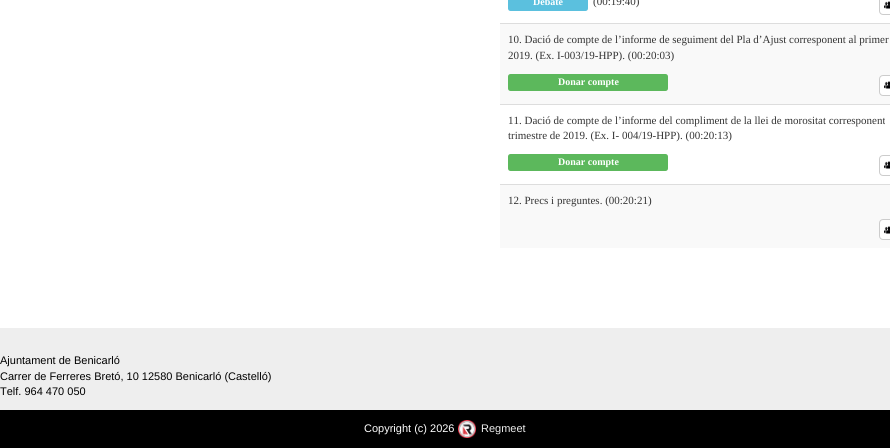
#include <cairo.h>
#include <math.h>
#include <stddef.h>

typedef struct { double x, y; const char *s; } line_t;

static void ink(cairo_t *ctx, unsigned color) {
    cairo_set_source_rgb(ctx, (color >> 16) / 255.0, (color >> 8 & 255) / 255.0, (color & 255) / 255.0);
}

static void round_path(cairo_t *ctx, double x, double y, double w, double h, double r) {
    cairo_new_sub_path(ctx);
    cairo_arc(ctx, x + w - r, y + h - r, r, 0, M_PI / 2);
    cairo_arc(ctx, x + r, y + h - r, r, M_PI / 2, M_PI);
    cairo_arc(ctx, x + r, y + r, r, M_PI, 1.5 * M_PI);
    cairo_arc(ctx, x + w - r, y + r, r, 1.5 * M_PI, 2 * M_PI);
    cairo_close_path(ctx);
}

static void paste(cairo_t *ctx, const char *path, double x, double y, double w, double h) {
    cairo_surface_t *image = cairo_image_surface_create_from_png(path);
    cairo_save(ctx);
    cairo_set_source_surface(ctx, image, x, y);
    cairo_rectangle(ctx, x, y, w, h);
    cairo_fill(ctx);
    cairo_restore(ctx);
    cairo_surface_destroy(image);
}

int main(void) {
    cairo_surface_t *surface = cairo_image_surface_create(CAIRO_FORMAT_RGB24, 890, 448);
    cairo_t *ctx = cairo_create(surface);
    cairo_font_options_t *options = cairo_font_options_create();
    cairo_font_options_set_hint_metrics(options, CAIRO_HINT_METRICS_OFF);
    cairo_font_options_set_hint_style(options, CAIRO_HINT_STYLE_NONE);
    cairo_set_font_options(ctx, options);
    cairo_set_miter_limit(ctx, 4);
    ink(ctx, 0xFFFFFF);
    cairo_paint(ctx);
    ink(ctx, 0x5BC0DE);
    round_path(ctx, 508, -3, 80, 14, 2.5);
    cairo_fill(ctx);
    cairo_select_font_face(ctx, "Liberation Serif", CAIRO_FONT_SLANT_NORMAL, CAIRO_FONT_WEIGHT_BOLD);
    cairo_set_font_size(ctx, 10);
    ink(ctx, 0xFFFFFF);
    cairo_move_to(ctx, 533, 5);
    cairo_show_text(ctx, "Debate");
    cairo_select_font_face(ctx, "Liberation Serif", CAIRO_FONT_SLANT_NORMAL, CAIRO_FONT_WEIGHT_NORMAL);
    cairo_set_font_size(ctx, 11);
    ink(ctx, 0x333333);
    cairo_move_to(ctx, 593, 5);
    cairo_show_text(ctx, "(00:19:40)");
    round_path(ctx, 879.5, -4.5, 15, 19, 3.5);
    ink(ctx, 0xCCCCCC);
    cairo_set_line_width(ctx, 1);
    cairo_stroke(ctx);
    paste(ctx, "media/1.png", 884, 1, 6, 8);
    ink(ctx, 0xF9F9F9);
    cairo_rectangle(ctx, 500, 24, 390, 80);
    cairo_fill(ctx);
    ink(ctx, 0xDDDDDD);
    cairo_rectangle(ctx, 500, 23, 390, 1);
    cairo_fill(ctx);
    ink(ctx, 0x333333);
    cairo_move_to(ctx, 508, 43);
    cairo_show_text(ctx, "10. Dació de compte de l’informe de seguiment del Pla d’Ajust corresponent al primer");
    cairo_move_to(ctx, 508, 59);
    cairo_show_text(ctx, "2019. (Ex. I-003/19-HPP). (00:20:03)");
    ink(ctx, 0x5CB85C);
    round_path(ctx, 508, 74, 160, 17, 2.5);
    cairo_fill(ctx);
    cairo_select_font_face(ctx, "Liberation Serif", CAIRO_FONT_SLANT_NORMAL, CAIRO_FONT_WEIGHT_BOLD);
    cairo_set_font_size(ctx, 10);
    ink(ctx, 0xFFFFFF);
    cairo_move_to(ctx, 558, 85);
    cairo_show_text(ctx, "Donar compte");
    round_path(ctx, 879.5, 75.5, 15, 20, 3.5);
    cairo_fill_preserve(ctx);
    ink(ctx, 0xCCCCCC);
    cairo_stroke(ctx);
    paste(ctx, "media/2.png", 884, 81, 6, 8);
    ink(ctx, 0xDDDDDD);
    cairo_rectangle(ctx, 500, 104, 390, 1);
    cairo_fill(ctx);
    cairo_select_font_face(ctx, "Liberation Serif", CAIRO_FONT_SLANT_NORMAL, CAIRO_FONT_WEIGHT_NORMAL);
    cairo_set_font_size(ctx, 11);
    ink(ctx, 0x333333);
    cairo_move_to(ctx, 508, 124);
    cairo_show_text(ctx, "11. Dació de compte de l’informe del compliment de la llei de morositat corresponent");
    cairo_move_to(ctx, 508, 139);
    cairo_show_text(ctx, "trimestre de 2019. (Ex. I- 004/19-HPP). (00:20:13)");
    ink(ctx, 0x5CB85C);
    round_path(ctx, 508, 154, 160, 17, 2.5);
    cairo_fill(ctx);
    cairo_select_font_face(ctx, "Liberation Serif", CAIRO_FONT_SLANT_NORMAL, CAIRO_FONT_WEIGHT_BOLD);
    cairo_set_font_size(ctx, 10);
    ink(ctx, 0xFFFFFF);
    cairo_move_to(ctx, 558, 165);
    cairo_show_text(ctx, "Donar compte");
    round_path(ctx, 879.5, 155.5, 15, 20, 3.5);
    ink(ctx, 0xCCCCCC);
    cairo_stroke(ctx);
    paste(ctx, "media/1.png", 884, 161, 6, 8);
    ink(ctx, 0xF9F9F9);
    cairo_rectangle(ctx, 500, 185, 390, 63);
    cairo_fill(ctx);
    ink(ctx, 0xDDDDDD);
    cairo_rectangle(ctx, 500, 184, 390, 1);
    cairo_fill(ctx);
    cairo_select_font_face(ctx, "Liberation Serif", CAIRO_FONT_SLANT_NORMAL, CAIRO_FONT_WEIGHT_NORMAL);
    cairo_set_font_size(ctx, 11);
    ink(ctx, 0x333333);
    cairo_move_to(ctx, 508, 204);
    cairo_show_text(ctx, "12. Precs i preguntes. (00:20:21)");
    ink(ctx, 0xFFFFFF);
    round_path(ctx, 879.5, 219.5, 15, 20, 3.5);
    cairo_fill_preserve(ctx);
    ink(ctx, 0xCCCCCC);
    cairo_stroke(ctx);
    paste(ctx, "media/1.png", 884, 226, 6, 8);
    ink(ctx, 0xEEEEEE);
    cairo_rectangle(ctx, 0, 328, 890, 82);
    cairo_fill(ctx);
    cairo_select_font_face(ctx, "Liberation Sans", CAIRO_FONT_SLANT_NORMAL, CAIRO_FONT_WEIGHT_NORMAL);
    ink(ctx, 0x000000);
    {
        static const line_t items[] = {
            {0, 364, "Ajuntament de Benicarló"},
            {0, 380, "Carrer de Ferreres Bretó, 10 12580 Benicarló (Castelló)"},
            {0, 395, "Telf. 964 470 050"},
        };
        for (size_t i = 0; i < sizeof items / sizeof *items; i++) {
            cairo_move_to(ctx, items[i].x, items[i].y);
            cairo_show_text(ctx, items[i].s);
        }
    }
    cairo_rectangle(ctx, 0, 410, 890, 38);
    cairo_fill(ctx);
    ink(ctx, 0xFFFFFF);
    cairo_move_to(ctx, 364, 432);
    cairo_show_text(ctx, "Copyright (c) 2026");
    paste(ctx, "media/3.png", 458, 420, 18, 18);
    ink(ctx, 0xEEEEEE);
    cairo_move_to(ctx, 481, 432);
    cairo_show_text(ctx, "Regmeet");
    cairo_surface_write_to_png(surface, "image.png");
    cairo_font_options_destroy(options);
    cairo_destroy(ctx);
    cairo_surface_destroy(surface);
    return 0;
}
